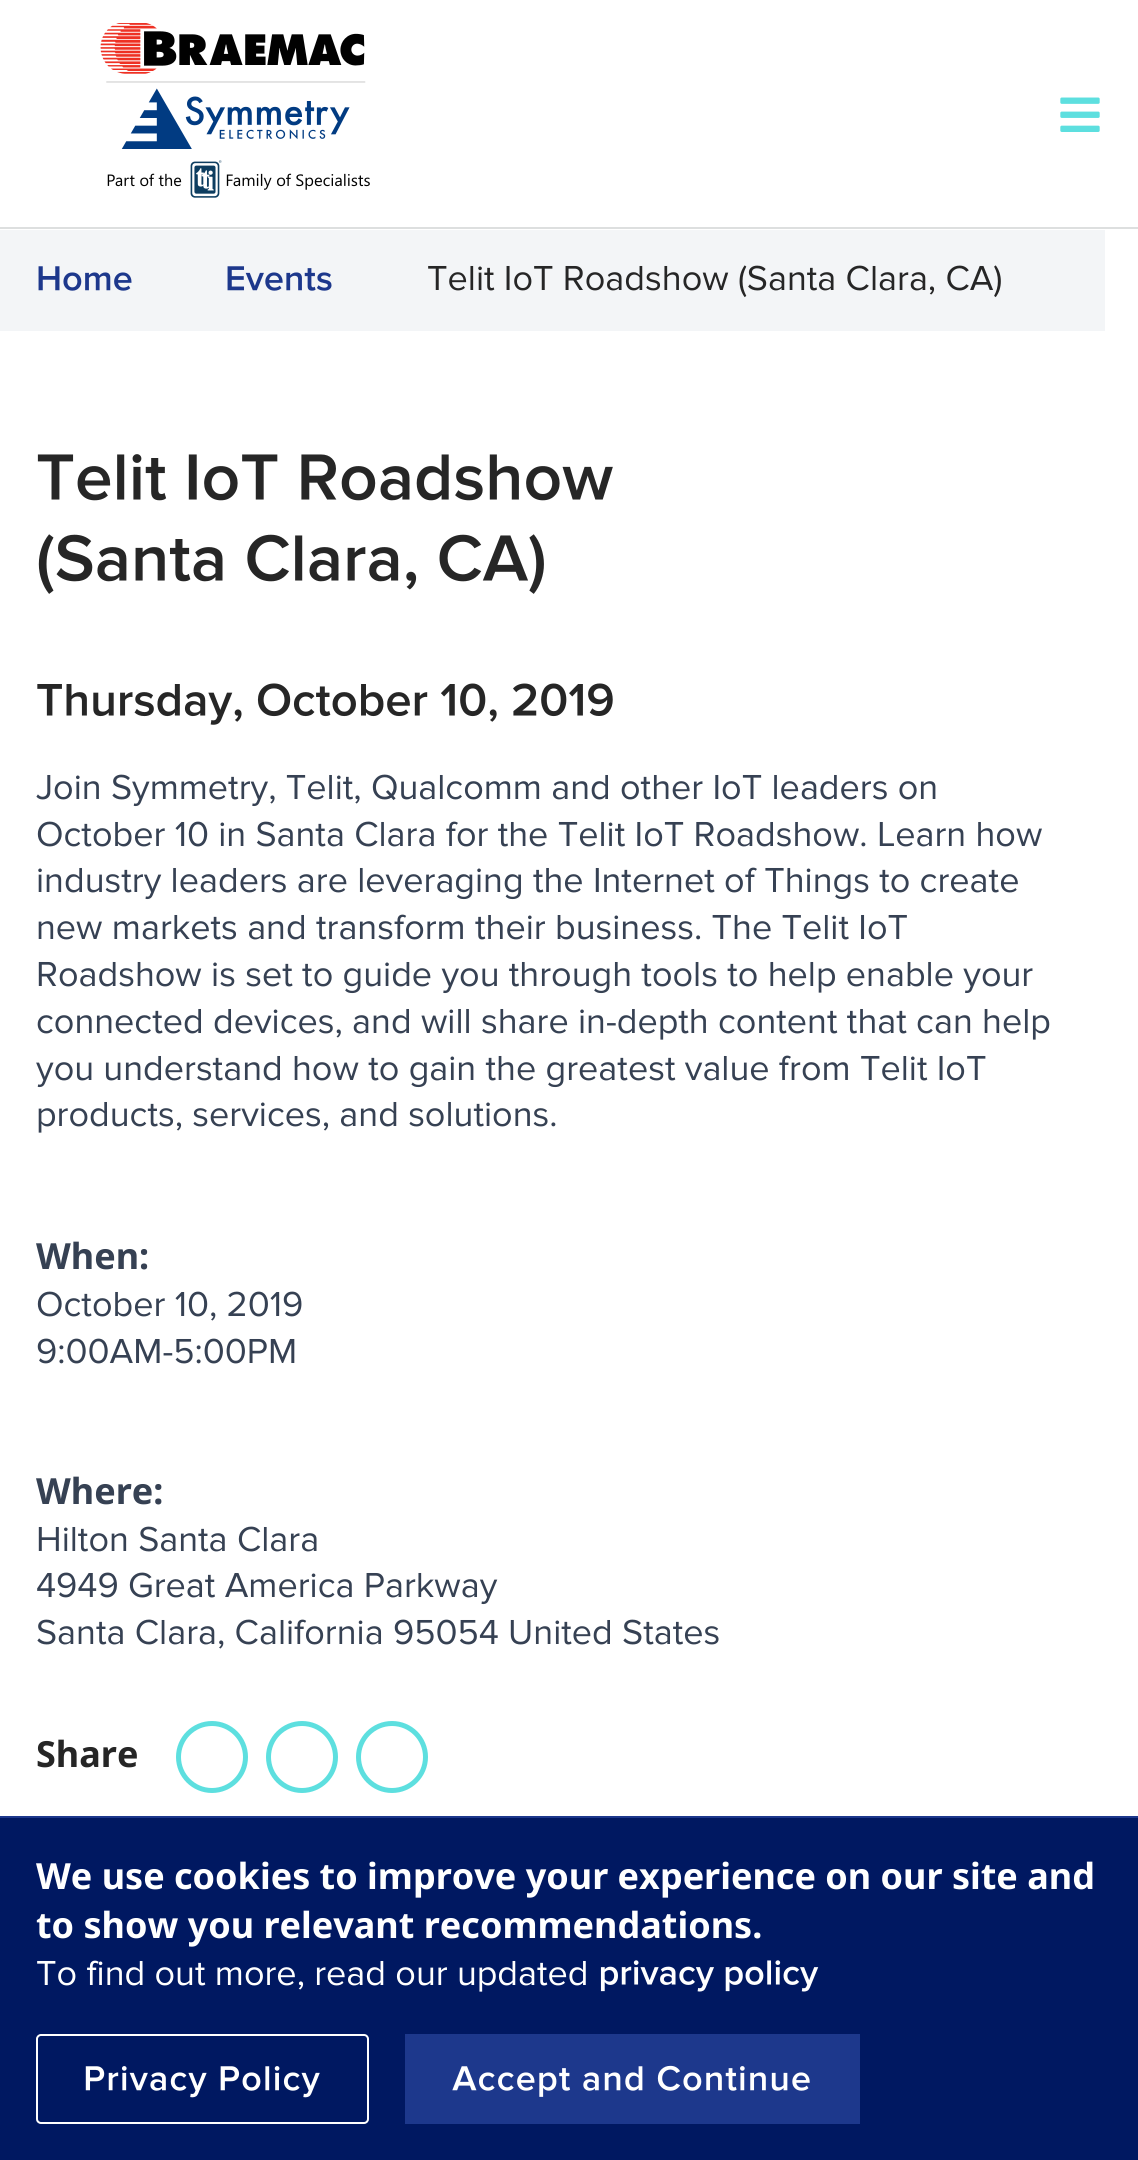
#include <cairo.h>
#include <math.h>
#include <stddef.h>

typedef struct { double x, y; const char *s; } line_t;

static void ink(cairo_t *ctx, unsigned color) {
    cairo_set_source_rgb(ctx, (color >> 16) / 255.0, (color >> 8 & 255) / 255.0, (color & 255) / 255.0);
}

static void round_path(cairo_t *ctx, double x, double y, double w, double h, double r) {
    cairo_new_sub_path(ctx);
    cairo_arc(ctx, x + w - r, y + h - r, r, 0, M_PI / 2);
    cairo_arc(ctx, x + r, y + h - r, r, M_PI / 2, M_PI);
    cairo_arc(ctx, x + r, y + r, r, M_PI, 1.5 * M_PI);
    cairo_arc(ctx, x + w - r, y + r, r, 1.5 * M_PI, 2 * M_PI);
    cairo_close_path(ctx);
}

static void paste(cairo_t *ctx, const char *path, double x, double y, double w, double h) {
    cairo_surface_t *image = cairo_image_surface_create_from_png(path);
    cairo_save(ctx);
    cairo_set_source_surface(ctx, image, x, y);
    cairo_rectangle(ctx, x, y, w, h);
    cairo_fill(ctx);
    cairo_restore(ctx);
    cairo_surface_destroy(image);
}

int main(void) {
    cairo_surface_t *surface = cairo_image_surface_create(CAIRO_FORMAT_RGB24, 1138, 2160);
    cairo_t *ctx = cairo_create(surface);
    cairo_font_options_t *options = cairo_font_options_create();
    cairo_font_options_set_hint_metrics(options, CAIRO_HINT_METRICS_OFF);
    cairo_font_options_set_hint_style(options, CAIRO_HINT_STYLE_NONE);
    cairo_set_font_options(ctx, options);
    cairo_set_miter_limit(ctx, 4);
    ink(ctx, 0xFFFFFF);
    cairo_paint(ctx);
    ink(ctx, 0xDDDFDF);
    cairo_rectangle(ctx, 0, 227, 1138, 2);
    cairo_fill(ctx);
    paste(ctx, "media/1.png", 100, 23, 270, 175);
    paste(ctx, "media/2.png", 1060, 97, 40, 35);
    ink(ctx, 0xF3F5F7);
    cairo_rectangle(ctx, 0, 230, 1105, 101);
    cairo_fill(ctx);
    paste(ctx, "media/3.png", 38, 266, 94, 25);
    paste(ctx, "media/4.png", 227, 266, 105, 25);
    cairo_select_font_face(ctx, "Proxima Nova", CAIRO_FONT_SLANT_NORMAL, CAIRO_FONT_WEIGHT_NORMAL);
    cairo_set_font_size(ctx, 36);
    ink(ctx, 0x262626);
    cairo_move_to(ctx, 427, 290);
    cairo_show_text(ctx, "Telit IoT Roadshow (Santa Clara, CA)");
    paste(ctx, "media/5.png", 37, 454, 576, 47);
    paste(ctx, "media/6.png", 38, 534, 506, 60);
    paste(ctx, "media/7.png", 37, 683, 576, 42);
    ink(ctx, 0x364153);
    {
        static const line_t items[] = {
            {36, 799, "Join Symmetry, Telit, Qualcomm and other IoT leaders on"},
            {36, 846, "October 10 in Santa Clara for the Telit IoT Roadshow. Learn how"},
            {36, 892, "industry leaders are leveraging the Internet of Things to create"},
            {36, 939, "new markets and transform their business. The Telit IoT"},
            {36, 986, "Roadshow is set to guide you through tools to help enable your"},
            {36, 1033, "connected devices, and will share in-depth content that can help"},
            {36, 1080, "you understand how to gain the greatest value from Telit IoT"},
            {36, 1126, "products, services, and solutions."},
        };
        for (size_t i = 0; i < sizeof items / sizeof *items; i++) {
            cairo_move_to(ctx, items[i].x, items[i].y);
            cairo_show_text(ctx, items[i].s);
        }
    }
    cairo_select_font_face(ctx, "Noto Sans", CAIRO_FONT_SLANT_NORMAL, CAIRO_FONT_WEIGHT_BOLD);
    cairo_move_to(ctx, 36, 1269);
    cairo_show_text(ctx, "When:");
    cairo_select_font_face(ctx, "Proxima Nova", CAIRO_FONT_SLANT_NORMAL, CAIRO_FONT_WEIGHT_NORMAL);
    cairo_move_to(ctx, 36, 1316);
    cairo_show_text(ctx, "October 10, 2019");
    cairo_move_to(ctx, 36, 1363);
    cairo_show_text(ctx, "9:00AM-5:00PM");
    cairo_select_font_face(ctx, "Noto Sans", CAIRO_FONT_SLANT_NORMAL, CAIRO_FONT_WEIGHT_BOLD);
    cairo_move_to(ctx, 36, 1504);
    cairo_show_text(ctx, "Where:");
    cairo_select_font_face(ctx, "Proxima Nova", CAIRO_FONT_SLANT_NORMAL, CAIRO_FONT_WEIGHT_NORMAL);
    {
        static const line_t items[] = {
            {36, 1551, "Hilton Santa Clara"},
            {36, 1597, "4949 Great America Parkway"},
            {36, 1644, "Santa Clara, California 95054 United States"},
        };
        for (size_t i = 0; i < sizeof items / sizeof *items; i++) {
            cairo_move_to(ctx, items[i].x, items[i].y);
            cairo_show_text(ctx, items[i].s);
        }
    }
    cairo_select_font_face(ctx, "Noto Sans", CAIRO_FONT_SLANT_NORMAL, CAIRO_FONT_WEIGHT_BOLD);
    ink(ctx, 0x262626);
    cairo_move_to(ctx, 36, 1767);
    cairo_show_text(ctx, "Share");
    cairo_new_path(ctx);
    cairo_arc(ctx, 212, 1757, 33.5, 0, 2 * M_PI);
    ink(ctx, 0x5DDFDF);
    cairo_set_line_width(ctx, 5);
    cairo_stroke(ctx);
    cairo_arc(ctx, 302, 1757, 33.5, 0, 2 * M_PI);
    cairo_stroke(ctx);
    cairo_arc(ctx, 392, 1757, 33.5, 0, 2 * M_PI);
    cairo_stroke(ctx);
    ink(ctx, 0x001861);
    cairo_rectangle(ctx, 0, 1818, 1138, 342);
    cairo_fill(ctx);
    ink(ctx, 0x1D388C);
    cairo_rectangle(ctx, 0, 1816, 1138, 2);
    cairo_fill(ctx);
    ink(ctx, 0xFFFFFF);
    cairo_move_to(ctx, 36, 1889);
    cairo_show_text(ctx, "We use cookies to improve your experience on our site and");
    cairo_move_to(ctx, 36, 1938);
    cairo_show_text(ctx, "to show you relevant recommendations.");
    cairo_select_font_face(ctx, "Proxima Nova", CAIRO_FONT_SLANT_NORMAL, CAIRO_FONT_WEIGHT_NORMAL);
    cairo_move_to(ctx, 36, 1985);
    cairo_show_text(ctx, "To find out more, read our updated");
    paste(ctx, "media/8.png", 600, 1960, 219, 32);
    round_path(ctx, 37, 2035, 331, 88, 4);
    cairo_set_line_width(ctx, 2);
    cairo_stroke(ctx);
    paste(ctx, "media/9.png", 85, 2066, 235, 32);
    ink(ctx, 0x1D388C);
    cairo_rectangle(ctx, 405, 2034, 455, 90);
    cairo_fill(ctx);
    paste(ctx, "media/10.png", 452, 2065, 358, 32);
    cairo_surface_write_to_png(surface, "image.png");
    cairo_font_options_destroy(options);
    cairo_destroy(ctx);
    cairo_surface_destroy(surface);
    return 0;
}
